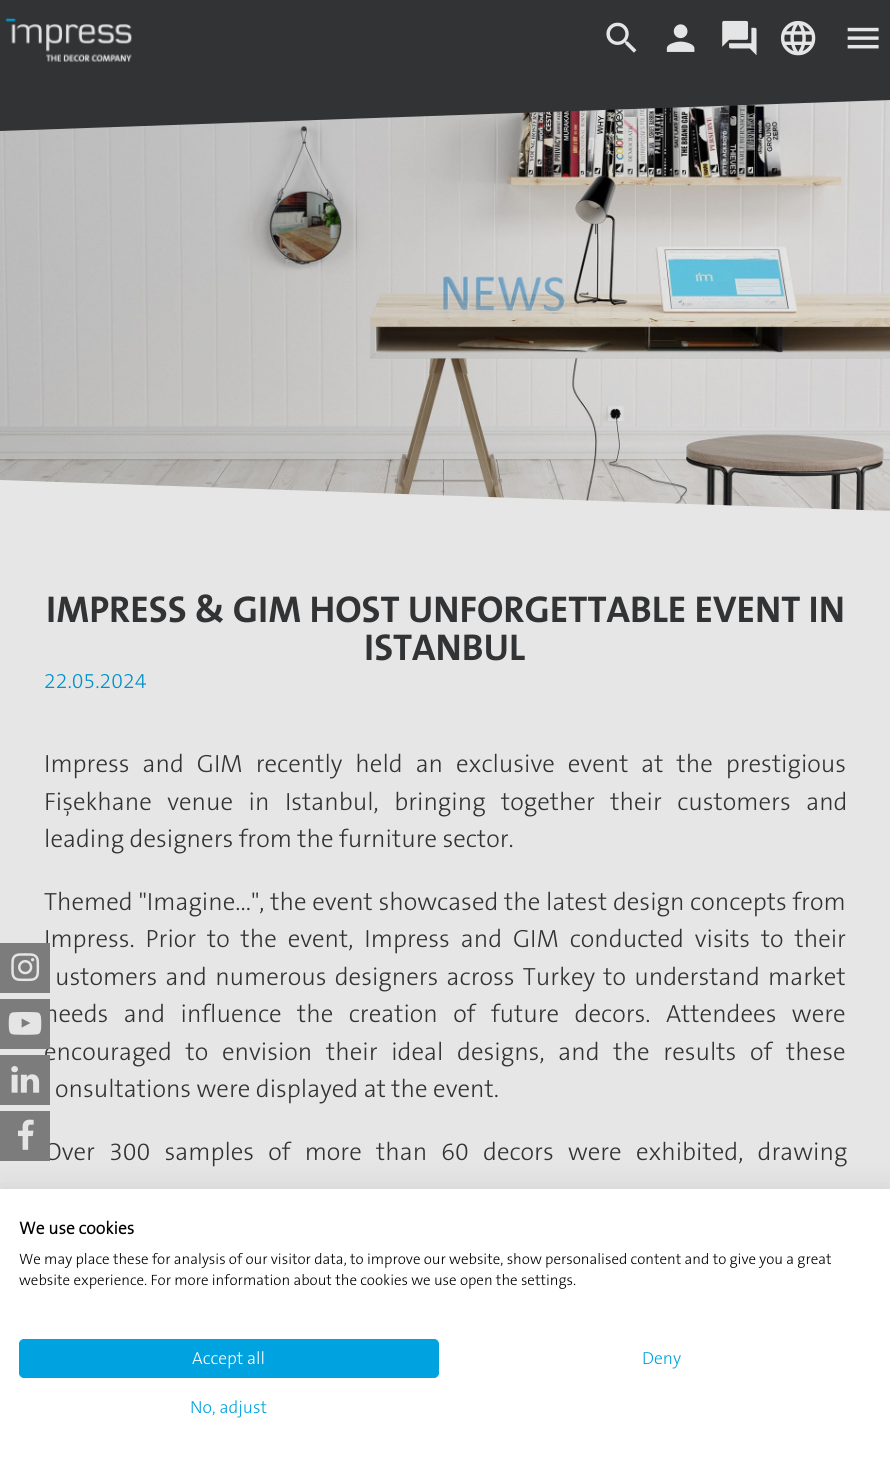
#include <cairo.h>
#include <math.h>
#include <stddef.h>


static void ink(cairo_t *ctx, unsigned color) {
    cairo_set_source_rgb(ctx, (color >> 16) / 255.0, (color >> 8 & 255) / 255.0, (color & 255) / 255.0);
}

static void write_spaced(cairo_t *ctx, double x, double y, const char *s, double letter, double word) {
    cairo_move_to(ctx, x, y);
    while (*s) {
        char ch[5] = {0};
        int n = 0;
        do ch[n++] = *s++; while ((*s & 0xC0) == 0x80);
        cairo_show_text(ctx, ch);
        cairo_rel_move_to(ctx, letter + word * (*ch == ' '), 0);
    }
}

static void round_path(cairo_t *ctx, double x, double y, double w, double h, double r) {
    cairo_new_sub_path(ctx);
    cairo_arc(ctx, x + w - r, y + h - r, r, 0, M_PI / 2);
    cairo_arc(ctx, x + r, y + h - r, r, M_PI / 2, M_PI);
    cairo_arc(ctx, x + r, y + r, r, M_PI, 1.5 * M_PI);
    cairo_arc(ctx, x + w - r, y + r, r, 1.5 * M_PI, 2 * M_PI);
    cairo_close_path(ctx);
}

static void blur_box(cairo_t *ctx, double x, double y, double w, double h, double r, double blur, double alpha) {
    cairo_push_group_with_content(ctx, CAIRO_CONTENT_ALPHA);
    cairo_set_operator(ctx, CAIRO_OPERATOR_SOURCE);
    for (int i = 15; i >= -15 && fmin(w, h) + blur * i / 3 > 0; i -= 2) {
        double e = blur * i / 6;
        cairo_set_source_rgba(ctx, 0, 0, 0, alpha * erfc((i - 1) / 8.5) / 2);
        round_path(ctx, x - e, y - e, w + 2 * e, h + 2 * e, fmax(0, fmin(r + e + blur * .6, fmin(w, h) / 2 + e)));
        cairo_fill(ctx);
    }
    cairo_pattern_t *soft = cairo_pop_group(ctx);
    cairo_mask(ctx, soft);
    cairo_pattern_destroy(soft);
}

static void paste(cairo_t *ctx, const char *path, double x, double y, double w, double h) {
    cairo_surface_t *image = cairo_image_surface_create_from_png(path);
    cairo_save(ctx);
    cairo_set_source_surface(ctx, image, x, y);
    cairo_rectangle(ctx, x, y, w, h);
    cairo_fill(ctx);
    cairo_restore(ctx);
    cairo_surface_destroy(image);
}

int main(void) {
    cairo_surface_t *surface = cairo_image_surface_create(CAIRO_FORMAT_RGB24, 890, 1460);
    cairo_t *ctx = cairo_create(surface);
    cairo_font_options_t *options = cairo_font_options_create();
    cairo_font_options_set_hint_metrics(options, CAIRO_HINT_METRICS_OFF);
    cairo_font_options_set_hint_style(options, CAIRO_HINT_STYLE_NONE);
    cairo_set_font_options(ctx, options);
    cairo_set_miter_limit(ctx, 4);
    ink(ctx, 0xFFFFFF);
    cairo_paint(ctx);
    ink(ctx, 0x323335);
    cairo_rectangle(ctx, 0, 0, 29, 1);
    cairo_fill(ctx);
    paste(ctx, "media/7.png", 0, 100, 890, 411);
    cairo_new_path(ctx);
    cairo_move_to(ctx, 0, 1);
    cairo_line_to(ctx, 890, -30);
    cairo_line_to(ctx, 890, 100);
    cairo_line_to(ctx, 0, 131);
    cairo_close_path(ctx);
    cairo_fill(ctx);
    paste(ctx, "media/1.png", 6, 18, 126, 44);
    paste(ctx, "media/2.png", 606, 22, 31, 31);
    paste(ctx, "media/3.png", 666, 24, 29, 28);
    paste(ctx, "media/4.png", 722, 20, 35, 36);
    paste(ctx, "media/5.png", 781, 21, 35, 35);
    paste(ctx, "media/6.png", 847, 27, 32, 22);
    ink(ctx, 0xE6E6E6);
    cairo_new_path(ctx);
    cairo_move_to(ctx, 0, 480);
    cairo_line_to(ctx, 890, 511);
    cairo_line_to(ctx, 890, 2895);
    cairo_line_to(ctx, 0, 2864);
    cairo_close_path(ctx);
    cairo_fill(ctx);
    cairo_select_font_face(ctx, "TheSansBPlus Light", CAIRO_FONT_SLANT_NORMAL, CAIRO_FONT_WEIGHT_NORMAL);
    cairo_set_font_size(ctx, 25);
    ink(ctx, 0x323335);
    write_spaced(ctx, 44, 947, "Impress. Prior to the event, Impress and GIM conducted visits to their", 0, 5.4);
    ink(ctx, 0x7C7C7C);
    cairo_rectangle(ctx, 0, 943, 50, 50);
    cairo_fill(ctx);
    paste(ctx, "media/8.png", 11, 953, 29, 29);
    ink(ctx, 0x323335);
    write_spaced(ctx, 44, 1022, "needs and influence the creation of future decors. Attendees were", 0, 10);
    write_spaced(ctx, 44, 1060, "encouraged to envision their ideal designs, and the results of these", 0, 8.25);
    ink(ctx, 0x7C7C7C);
    cairo_rectangle(ctx, 0, 999, 50, 50);
    cairo_fill(ctx);
    paste(ctx, "media/9.png", 8, 1012, 34, 23);
    cairo_rectangle(ctx, 0, 1055, 50, 50);
    cairo_fill(ctx);
    paste(ctx, "media/10.png", 11, 1066, 29, 27);
    ink(ctx, 0x323335);
    write_spaced(ctx, 44, 1160, "Over 300 samples of more than 60 decors were exhibited, drawing", 0, 8.75);
    ink(ctx, 0x7C7C7C);
    cairo_rectangle(ctx, 0, 1111, 50, 50);
    cairo_fill(ctx);
    paste(ctx, "media/11.png", 18, 1119, 16, 31);
    cairo_select_font_face(ctx, "TheSansBPlus", CAIRO_FONT_SLANT_NORMAL, CAIRO_FONT_WEIGHT_BOLD);
    cairo_set_font_size(ctx, 37.5);
    ink(ctx, 0x323335);
    cairo_move_to(ctx, 46, 622);
    cairo_show_text(ctx, "IMPRESS & GIM HOST UNFORGETTABLE EVENT IN");
    cairo_move_to(ctx, 364, 660);
    cairo_show_text(ctx, "ISTANBUL");
    cairo_select_font_face(ctx, "TheSansBPlus Light", CAIRO_FONT_SLANT_NORMAL, CAIRO_FONT_WEIGHT_NORMAL);
    cairo_set_font_size(ctx, 21.25);
    ink(ctx, 0x0092CA);
    cairo_move_to(ctx, 44, 688);
    cairo_show_text(ctx, "22.05.2024");
    cairo_set_font_size(ctx, 25);
    ink(ctx, 0x323335);
    write_spaced(ctx, 44, 772, "Impress and GIM recently held an exclusive event at the prestigious", 0, 7.5);
    write_spaced(ctx, 44, 810, "Fişekhane venue in Istanbul, bringing together their customers and", 0, 10);
    cairo_move_to(ctx, 44, 847);
    cairo_show_text(ctx, "leading designers from the furniture sector.");
    write_spaced(ctx, 44, 910, "Themed \"Imagine...\", the event showcased the latest design concepts from", 0, 0.25);
    write_spaced(ctx, 55, 985, "ustomers and numerous designers across Turkey to understand market", 0, 2.75);
    cairo_move_to(ctx, 55, 1097);
    cairo_show_text(ctx, "onsultations were displayed at the event.");
    ink(ctx, 0x000000);
    blur_box(ctx, 0, 1189, 890, 271, 0, 15, 0.1);
    ink(ctx, 0xFFFFFF);
    cairo_rectangle(ctx, 0, 1189, 890, 271);
    cairo_fill(ctx);
    cairo_select_font_face(ctx, "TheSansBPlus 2", CAIRO_FONT_SLANT_NORMAL, CAIRO_FONT_WEIGHT_BOLD);
    cairo_set_font_size(ctx, 17.5);
    ink(ctx, 0x000000);
    cairo_move_to(ctx, 19, 1234);
    cairo_show_text(ctx, "We use cookies");
    cairo_select_font_face(ctx, "TheSansBPlus Light", CAIRO_FONT_SLANT_NORMAL, CAIRO_FONT_WEIGHT_NORMAL);
    cairo_set_font_size(ctx, 15);
    cairo_move_to(ctx, 19, 1264);
    cairo_show_text(ctx, "We may place these for analysis of our visitor data, to improve our website, show personalised content and to give you a great");
    cairo_move_to(ctx, 19, 1285);
    cairo_show_text(ctx, "website experience. For more information about the cookies we use open the settings.");
    ink(ctx, 0x00A2E0);
    round_path(ctx, 19.5, 1339.5, 419, 38, 4.5);
    cairo_fill_preserve(ctx);
    cairo_set_line_width(ctx, 1);
    cairo_stroke(ctx);
    cairo_set_font_size(ctx, 17.5);
    ink(ctx, 0xFFFFFF);
    cairo_move_to(ctx, 192, 1364);
    cairo_show_text(ctx, "Accept all");
    ink(ctx, 0x00A2E0);
    cairo_move_to(ctx, 642, 1364);
    cairo_show_text(ctx, "Deny");
    cairo_move_to(ctx, 190, 1413);
    cairo_show_text(ctx, "No, adjust");
    cairo_surface_write_to_png(surface, "image.png");
    cairo_font_options_destroy(options);
    cairo_destroy(ctx);
    cairo_surface_destroy(surface);
    return 0;
}
